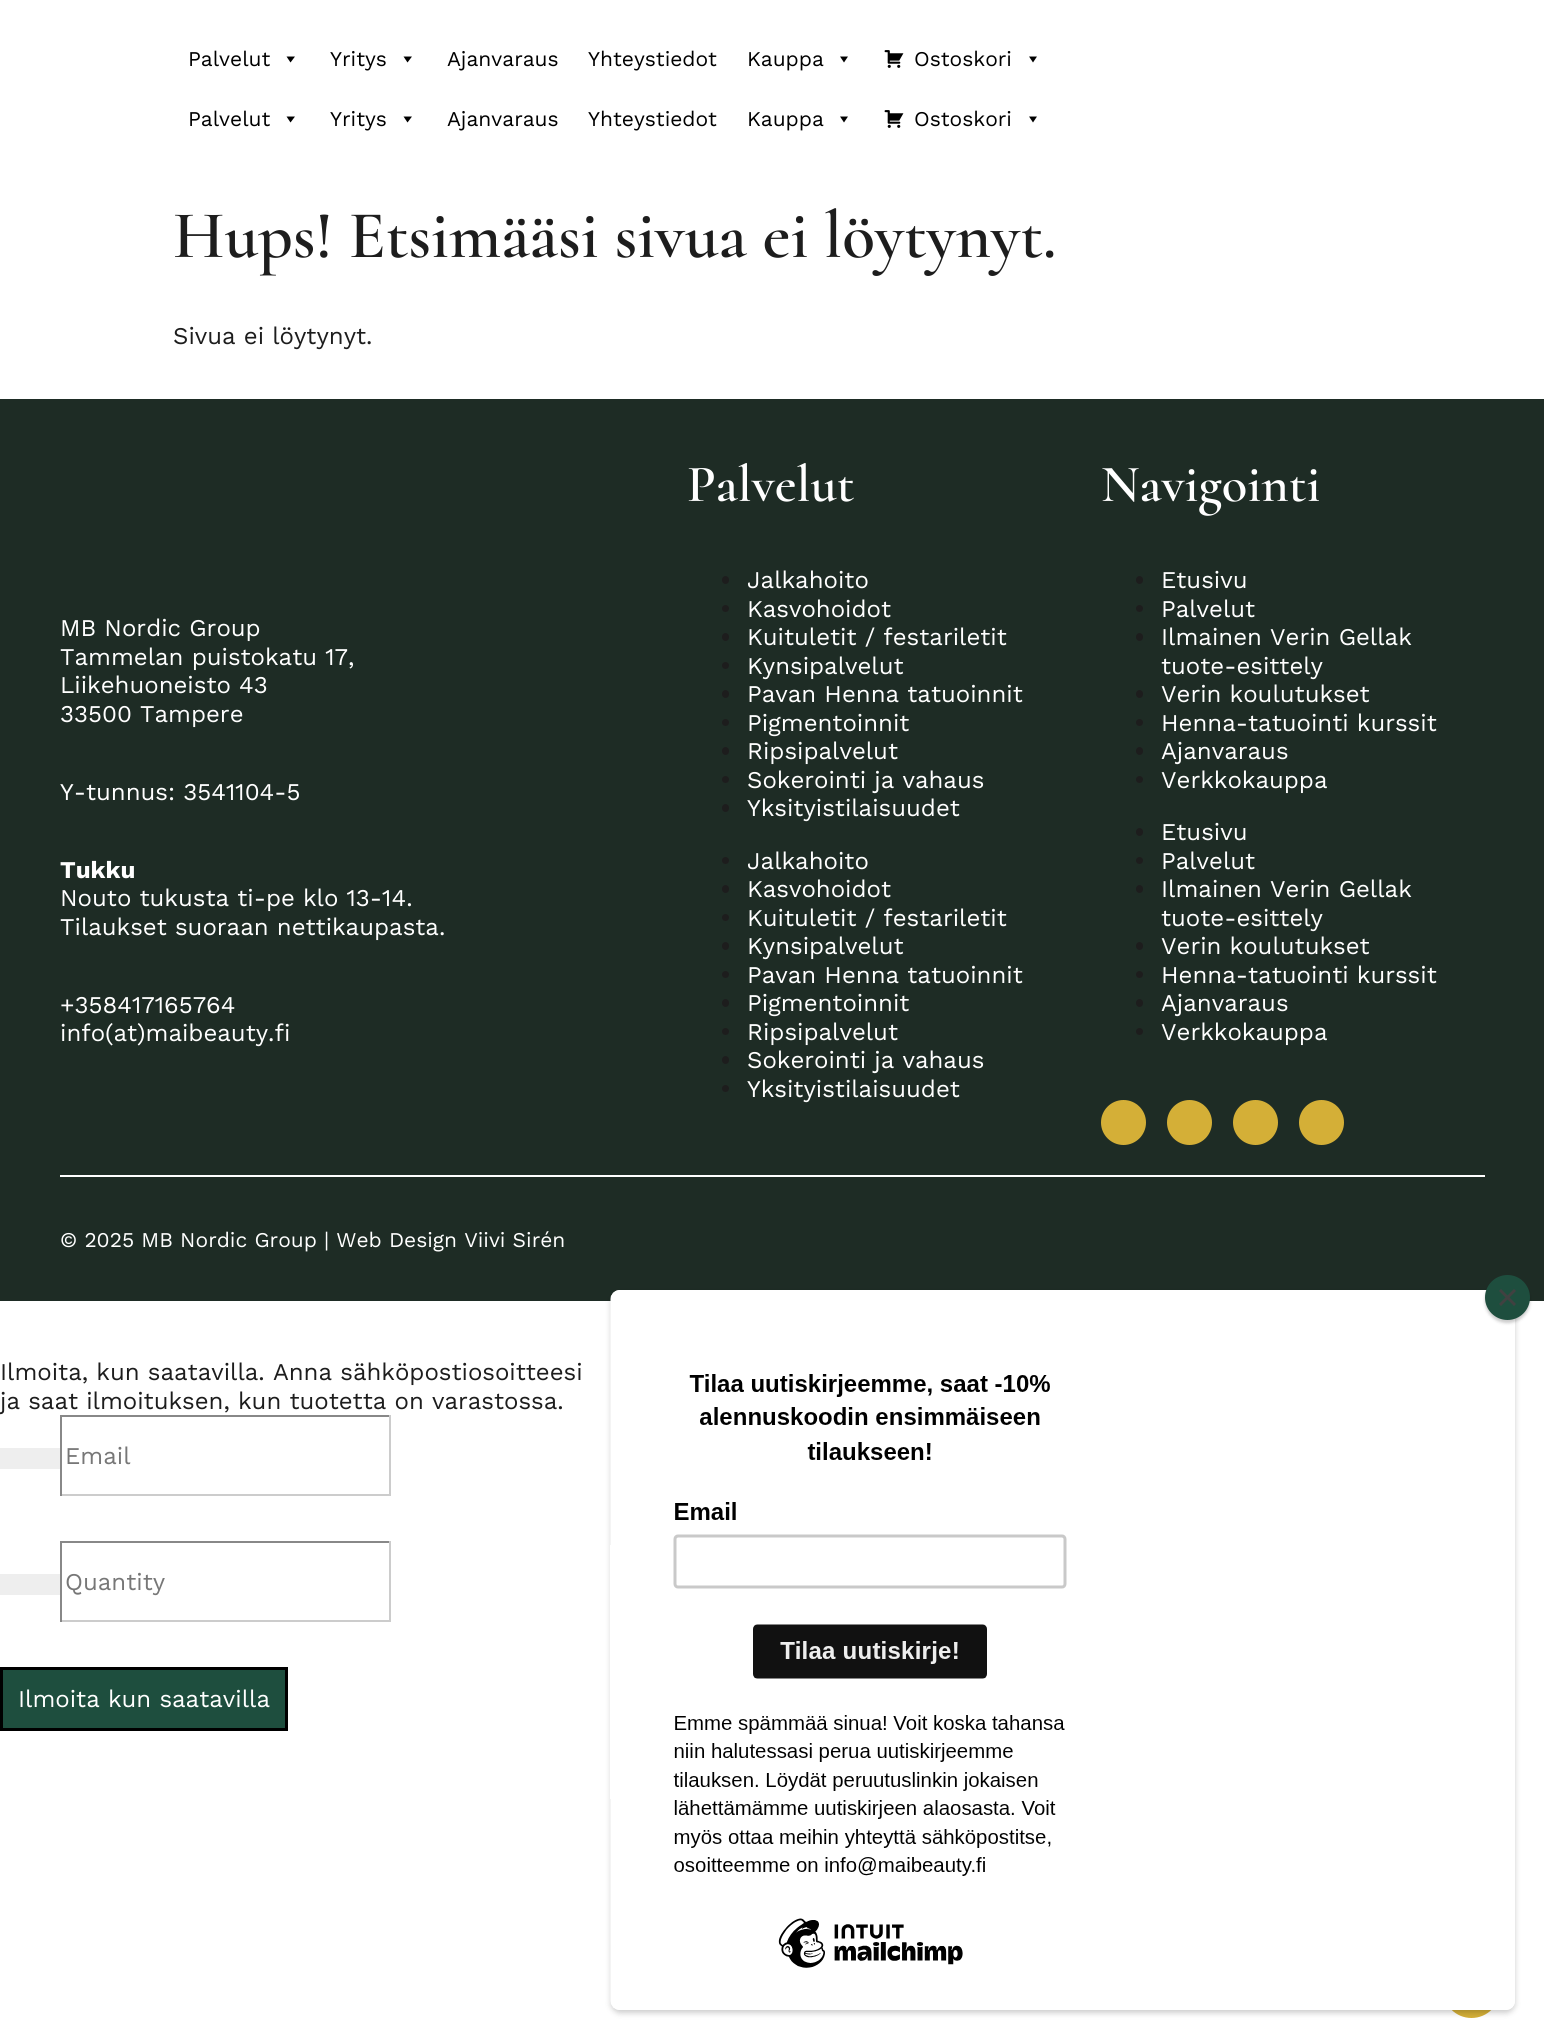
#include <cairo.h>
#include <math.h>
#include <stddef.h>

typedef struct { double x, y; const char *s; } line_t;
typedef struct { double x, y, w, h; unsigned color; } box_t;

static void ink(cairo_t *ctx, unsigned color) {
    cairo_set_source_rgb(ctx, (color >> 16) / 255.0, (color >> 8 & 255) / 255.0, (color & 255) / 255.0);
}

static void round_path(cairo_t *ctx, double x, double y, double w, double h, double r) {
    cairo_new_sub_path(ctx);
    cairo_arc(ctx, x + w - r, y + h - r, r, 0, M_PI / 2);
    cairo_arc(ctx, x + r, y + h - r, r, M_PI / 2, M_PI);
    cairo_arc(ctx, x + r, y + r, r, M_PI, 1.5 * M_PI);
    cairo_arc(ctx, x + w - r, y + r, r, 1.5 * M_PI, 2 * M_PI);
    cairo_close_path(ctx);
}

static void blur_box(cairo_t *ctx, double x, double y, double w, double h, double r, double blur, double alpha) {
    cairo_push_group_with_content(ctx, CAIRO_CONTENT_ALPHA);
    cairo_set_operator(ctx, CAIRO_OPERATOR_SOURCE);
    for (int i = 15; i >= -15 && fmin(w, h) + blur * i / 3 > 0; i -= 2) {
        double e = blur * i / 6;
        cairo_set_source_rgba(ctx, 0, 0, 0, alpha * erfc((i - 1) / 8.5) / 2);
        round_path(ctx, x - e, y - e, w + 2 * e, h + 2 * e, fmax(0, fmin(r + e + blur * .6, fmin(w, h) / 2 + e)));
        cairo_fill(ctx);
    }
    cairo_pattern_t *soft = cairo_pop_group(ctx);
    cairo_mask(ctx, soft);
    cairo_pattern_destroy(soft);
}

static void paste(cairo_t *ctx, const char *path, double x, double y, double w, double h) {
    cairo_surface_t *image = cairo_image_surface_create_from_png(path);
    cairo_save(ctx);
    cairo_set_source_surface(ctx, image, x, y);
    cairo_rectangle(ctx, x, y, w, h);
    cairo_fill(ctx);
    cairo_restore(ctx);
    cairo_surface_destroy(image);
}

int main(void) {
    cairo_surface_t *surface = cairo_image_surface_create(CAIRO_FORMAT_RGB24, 1544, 2040);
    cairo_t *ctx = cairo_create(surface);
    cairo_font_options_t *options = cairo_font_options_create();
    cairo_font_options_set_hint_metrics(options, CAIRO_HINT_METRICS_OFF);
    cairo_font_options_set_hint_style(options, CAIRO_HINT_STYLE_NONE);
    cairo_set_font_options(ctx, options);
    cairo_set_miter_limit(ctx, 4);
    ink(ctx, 0xFFFFFF);
    cairo_paint(ctx);
    cairo_select_font_face(ctx, "Work Sans", CAIRO_FONT_SLANT_NORMAL, CAIRO_FONT_WEIGHT_NORMAL);
    cairo_set_font_size(ctx, 21);
    ink(ctx, 0x000000);
    cairo_move_to(ctx, 188, 66);
    cairo_show_text(ctx, "Palvelut");
    cairo_new_path(ctx);
    cairo_move_to(ctx, 295, 56.5);
    cairo_line_to(ctx, 290.5, 62.5);
    cairo_line_to(ctx, 286.5, 56.5);
    cairo_close_path(ctx);
    cairo_fill(ctx);
    cairo_move_to(ctx, 330, 66);
    cairo_show_text(ctx, "Yritys");
    cairo_new_path(ctx);
    cairo_move_to(ctx, 412, 56.5);
    cairo_line_to(ctx, 407.5, 62.5);
    cairo_line_to(ctx, 403.5, 56.5);
    cairo_close_path(ctx);
    cairo_fill(ctx);
    {
        static const line_t items[] = {
            {447, 66, "Ajanvaraus"},
            {588, 66, "Yhteystiedot"},
            {747, 66, "Kauppa"},
        };
        for (size_t i = 0; i < sizeof items / sizeof *items; i++) {
            cairo_move_to(ctx, items[i].x, items[i].y);
            cairo_show_text(ctx, items[i].s);
        }
    }
    cairo_new_path(ctx);
    cairo_move_to(ctx, 848, 56.5);
    cairo_line_to(ctx, 844, 62.5);
    cairo_line_to(ctx, 840, 56.5);
    cairo_close_path(ctx);
    cairo_fill(ctx);
    paste(ctx, "media/1.png", 884, 50, 20, 18);
    cairo_move_to(ctx, 914, 66);
    cairo_show_text(ctx, "Ostoskori");
    cairo_new_path(ctx);
    cairo_move_to(ctx, 1037, 56.5);
    cairo_line_to(ctx, 1033, 62.5);
    cairo_line_to(ctx, 1029, 56.5);
    cairo_close_path(ctx);
    cairo_fill(ctx);
    cairo_move_to(ctx, 188, 126);
    cairo_show_text(ctx, "Palvelut");
    cairo_new_path(ctx);
    cairo_move_to(ctx, 295, 116.5);
    cairo_line_to(ctx, 290.5, 122.5);
    cairo_line_to(ctx, 286.5, 116.5);
    cairo_close_path(ctx);
    cairo_fill(ctx);
    cairo_move_to(ctx, 330, 126);
    cairo_show_text(ctx, "Yritys");
    cairo_new_path(ctx);
    cairo_move_to(ctx, 412, 116.5);
    cairo_line_to(ctx, 407.5, 122.5);
    cairo_line_to(ctx, 403.5, 116.5);
    cairo_close_path(ctx);
    cairo_fill(ctx);
    {
        static const line_t items[] = {
            {447, 126, "Ajanvaraus"},
            {588, 126, "Yhteystiedot"},
            {747, 126, "Kauppa"},
        };
        for (size_t i = 0; i < sizeof items / sizeof *items; i++) {
            cairo_move_to(ctx, items[i].x, items[i].y);
            cairo_show_text(ctx, items[i].s);
        }
    }
    cairo_new_path(ctx);
    cairo_move_to(ctx, 848, 116.5);
    cairo_line_to(ctx, 844, 122.5);
    cairo_line_to(ctx, 840, 116.5);
    cairo_close_path(ctx);
    cairo_fill(ctx);
    paste(ctx, "media/1.png", 884, 110, 20, 18);
    cairo_move_to(ctx, 914, 126);
    cairo_show_text(ctx, "Ostoskori");
    cairo_new_path(ctx);
    cairo_move_to(ctx, 1037, 116.5);
    cairo_line_to(ctx, 1033, 122.5);
    cairo_line_to(ctx, 1029, 116.5);
    cairo_close_path(ctx);
    cairo_fill(ctx);
    cairo_select_font_face(ctx, "Cormorant SemiBold", CAIRO_FONT_SLANT_NORMAL, CAIRO_FONT_WEIGHT_NORMAL);
    cairo_set_font_size(ctx, 67.5);
    ink(ctx, 0x1D1D1D);
    cairo_move_to(ctx, 173, 257);
    cairo_show_text(ctx, "Hups! Etsimääsi sivua ei löytynyt.");
    cairo_select_font_face(ctx, "Work Sans", CAIRO_FONT_SLANT_NORMAL, CAIRO_FONT_WEIGHT_NORMAL);
    cairo_set_font_size(ctx, 24);
    cairo_move_to(ctx, 173, 344);
    cairo_show_text(ctx, "Sivua ei löytynyt.");
    ink(ctx, 0x1E2C25);
    cairo_rectangle(ctx, 0, 399, 1544, 902);
    cairo_fill(ctx);
    ink(ctx, 0xFFFFFF);
    {
        static const line_t items[] = {
            {60, 636, "MB Nordic Group"},
            {60, 665, "Tammelan puistokatu 17,"},
            {60, 693, "Liikehuoneisto 43"},
            {60, 722, "33500 Tampere"},
            {60, 800, "Y-tunnus: 3541104-5"},
        };
        for (size_t i = 0; i < sizeof items / sizeof *items; i++) {
            cairo_move_to(ctx, items[i].x, items[i].y);
            cairo_show_text(ctx, items[i].s);
        }
    }
    cairo_select_font_face(ctx, "Work Sans", CAIRO_FONT_SLANT_NORMAL, CAIRO_FONT_WEIGHT_BOLD);
    cairo_move_to(ctx, 60, 878);
    cairo_show_text(ctx, "Tukku");
    cairo_select_font_face(ctx, "Work Sans", CAIRO_FONT_SLANT_NORMAL, CAIRO_FONT_WEIGHT_NORMAL);
    {
        static const line_t items[] = {
            {60, 906, "Nouto tukusta ti-pe klo 13-14."},
            {60, 935, "Tilaukset suoraan nettikaupasta."},
            {60, 1013, "+358417165764"},
            {60, 1041, "info(at)maibeauty.fi"},
        };
        for (size_t i = 0; i < sizeof items / sizeof *items; i++) {
            cairo_move_to(ctx, items[i].x, items[i].y);
            cairo_show_text(ctx, items[i].s);
        }
    }
    ink(ctx, 0xD4AF37);
    round_path(ctx, 1443, 1955, 57, 63, 28.5);
    cairo_fill(ctx);
    cairo_select_font_face(ctx, "Cormorant SemiBold", CAIRO_FONT_SLANT_NORMAL, CAIRO_FONT_WEIGHT_NORMAL);
    cairo_set_font_size(ctx, 52.5);
    ink(ctx, 0xFFFFFF);
    cairo_move_to(ctx, 687, 501);
    cairo_show_text(ctx, "Palvelut");
    ink(ctx, 0x1D1D1D);
    round_path(ctx, 722, 576, 7, 8, 3.5);
    cairo_fill(ctx);
    cairo_select_font_face(ctx, "Work Sans", CAIRO_FONT_SLANT_NORMAL, CAIRO_FONT_WEIGHT_NORMAL);
    cairo_set_font_size(ctx, 24);
    ink(ctx, 0xFFFFFF);
    cairo_move_to(ctx, 747, 588);
    cairo_show_text(ctx, "Jalkahoito");
    ink(ctx, 0x1D1D1D);
    cairo_new_path(ctx);
    cairo_arc(ctx, 725.5, 608.5, 3.5, 0, 2 * M_PI);
    cairo_fill(ctx);
    ink(ctx, 0xFFFFFF);
    cairo_move_to(ctx, 747, 617);
    cairo_show_text(ctx, "Kasvohoidot");
    ink(ctx, 0x1D1D1D);
    round_path(ctx, 722, 633, 7, 8, 3.5);
    cairo_fill(ctx);
    ink(ctx, 0xFFFFFF);
    cairo_move_to(ctx, 747, 645);
    cairo_show_text(ctx, "Kuituletit / festariletit");
    ink(ctx, 0x1D1D1D);
    cairo_new_path(ctx);
    cairo_arc(ctx, 725.5, 665.5, 3.5, 0, 2 * M_PI);
    cairo_fill(ctx);
    ink(ctx, 0xFFFFFF);
    cairo_move_to(ctx, 747, 674);
    cairo_show_text(ctx, "Kynsipalvelut");
    ink(ctx, 0x1D1D1D);
    round_path(ctx, 722, 690, 7, 8, 3.5);
    cairo_fill(ctx);
    ink(ctx, 0xFFFFFF);
    cairo_move_to(ctx, 747, 702);
    cairo_show_text(ctx, "Pavan Henna tatuoinnit");
    ink(ctx, 0x1D1D1D);
    cairo_new_path(ctx);
    cairo_arc(ctx, 725.5, 722.5, 3.5, 0, 2 * M_PI);
    cairo_fill(ctx);
    ink(ctx, 0xFFFFFF);
    cairo_move_to(ctx, 747, 731);
    cairo_show_text(ctx, "Pigmentoinnit");
    ink(ctx, 0x1D1D1D);
    round_path(ctx, 722, 747, 7, 8, 3.5);
    cairo_fill(ctx);
    ink(ctx, 0xFFFFFF);
    cairo_move_to(ctx, 747, 759);
    cairo_show_text(ctx, "Ripsipalvelut");
    ink(ctx, 0x1D1D1D);
    cairo_new_path(ctx);
    cairo_arc(ctx, 725.5, 779.5, 3.5, 0, 2 * M_PI);
    cairo_fill(ctx);
    ink(ctx, 0xFFFFFF);
    cairo_move_to(ctx, 747, 788);
    cairo_show_text(ctx, "Sokerointi ja vahaus");
    ink(ctx, 0x1D1D1D);
    round_path(ctx, 722, 804, 7, 8, 3.5);
    cairo_fill(ctx);
    ink(ctx, 0xFFFFFF);
    cairo_move_to(ctx, 747, 816);
    cairo_show_text(ctx, "Yksityistilaisuudet");
    ink(ctx, 0x1D1D1D);
    cairo_new_path(ctx);
    cairo_arc(ctx, 725.5, 860.5, 3.5, 0, 2 * M_PI);
    cairo_fill(ctx);
    ink(ctx, 0xFFFFFF);
    cairo_move_to(ctx, 747, 869);
    cairo_show_text(ctx, "Jalkahoito");
    ink(ctx, 0x1D1D1D);
    round_path(ctx, 722, 885, 7, 8, 3.5);
    cairo_fill(ctx);
    ink(ctx, 0xFFFFFF);
    cairo_move_to(ctx, 747, 897);
    cairo_show_text(ctx, "Kasvohoidot");
    ink(ctx, 0x1D1D1D);
    cairo_new_path(ctx);
    cairo_arc(ctx, 725.5, 917.5, 3.5, 0, 2 * M_PI);
    cairo_fill(ctx);
    ink(ctx, 0xFFFFFF);
    cairo_move_to(ctx, 747, 926);
    cairo_show_text(ctx, "Kuituletit / festariletit");
    ink(ctx, 0x1D1D1D);
    round_path(ctx, 722, 942, 7, 8, 3.5);
    cairo_fill(ctx);
    ink(ctx, 0xFFFFFF);
    cairo_move_to(ctx, 747, 954);
    cairo_show_text(ctx, "Kynsipalvelut");
    ink(ctx, 0x1D1D1D);
    cairo_new_path(ctx);
    cairo_arc(ctx, 725.5, 974.5, 3.5, 0, 2 * M_PI);
    cairo_fill(ctx);
    ink(ctx, 0xFFFFFF);
    cairo_move_to(ctx, 747, 983);
    cairo_show_text(ctx, "Pavan Henna tatuoinnit");
    ink(ctx, 0x1D1D1D);
    round_path(ctx, 722, 999, 7, 8, 3.5);
    cairo_fill(ctx);
    ink(ctx, 0xFFFFFF);
    cairo_move_to(ctx, 747, 1011);
    cairo_show_text(ctx, "Pigmentoinnit");
    ink(ctx, 0x1D1D1D);
    cairo_new_path(ctx);
    cairo_arc(ctx, 725.5, 1031.5, 3.5, 0, 2 * M_PI);
    cairo_fill(ctx);
    ink(ctx, 0xFFFFFF);
    cairo_move_to(ctx, 747, 1040);
    cairo_show_text(ctx, "Ripsipalvelut");
    ink(ctx, 0x1D1D1D);
    round_path(ctx, 722, 1056, 7, 8, 3.5);
    cairo_fill(ctx);
    ink(ctx, 0xFFFFFF);
    cairo_move_to(ctx, 747, 1068);
    cairo_show_text(ctx, "Sokerointi ja vahaus");
    ink(ctx, 0x1D1D1D);
    cairo_new_path(ctx);
    cairo_arc(ctx, 725.5, 1088.5, 3.5, 0, 2 * M_PI);
    cairo_fill(ctx);
    ink(ctx, 0xFFFFFF);
    cairo_move_to(ctx, 747, 1097);
    cairo_show_text(ctx, "Yksityistilaisuudet");
    cairo_select_font_face(ctx, "Cormorant SemiBold", CAIRO_FONT_SLANT_NORMAL, CAIRO_FONT_WEIGHT_NORMAL);
    cairo_set_font_size(ctx, 52.5);
    cairo_move_to(ctx, 1101, 501);
    cairo_show_text(ctx, "Navigointi");
    ink(ctx, 0x1D1D1D);
    round_path(ctx, 1136, 576, 7, 8, 3.5);
    cairo_fill(ctx);
    cairo_select_font_face(ctx, "Work Sans", CAIRO_FONT_SLANT_NORMAL, CAIRO_FONT_WEIGHT_NORMAL);
    cairo_set_font_size(ctx, 24);
    ink(ctx, 0xFFFFFF);
    cairo_move_to(ctx, 1161, 588);
    cairo_show_text(ctx, "Etusivu");
    ink(ctx, 0x1D1D1D);
    cairo_new_path(ctx);
    cairo_arc(ctx, 1139.5, 608.5, 3.5, 0, 2 * M_PI);
    cairo_fill(ctx);
    ink(ctx, 0xFFFFFF);
    cairo_move_to(ctx, 1161, 617);
    cairo_show_text(ctx, "Palvelut");
    ink(ctx, 0x1D1D1D);
    round_path(ctx, 1136, 633, 7, 8, 3.5);
    cairo_fill(ctx);
    ink(ctx, 0xFFFFFF);
    cairo_move_to(ctx, 1161, 645);
    cairo_show_text(ctx, "Ilmainen Verin Gellak");
    cairo_move_to(ctx, 1161, 674);
    cairo_show_text(ctx, "tuote-esittely");
    ink(ctx, 0x1D1D1D);
    round_path(ctx, 1136, 690, 7, 8, 3.5);
    cairo_fill(ctx);
    ink(ctx, 0xFFFFFF);
    cairo_move_to(ctx, 1161, 702);
    cairo_show_text(ctx, "Verin koulutukset");
    ink(ctx, 0x1D1D1D);
    cairo_new_path(ctx);
    cairo_arc(ctx, 1139.5, 722.5, 3.5, 0, 2 * M_PI);
    cairo_fill(ctx);
    ink(ctx, 0xFFFFFF);
    cairo_move_to(ctx, 1161, 731);
    cairo_show_text(ctx, "Henna-tatuointi kurssit");
    ink(ctx, 0x1D1D1D);
    round_path(ctx, 1136, 747, 7, 8, 3.5);
    cairo_fill(ctx);
    ink(ctx, 0xFFFFFF);
    cairo_move_to(ctx, 1161, 759);
    cairo_show_text(ctx, "Ajanvaraus");
    ink(ctx, 0x1D1D1D);
    cairo_new_path(ctx);
    cairo_arc(ctx, 1139.5, 779.5, 3.5, 0, 2 * M_PI);
    cairo_fill(ctx);
    ink(ctx, 0xFFFFFF);
    cairo_move_to(ctx, 1161, 788);
    cairo_show_text(ctx, "Verkkokauppa");
    ink(ctx, 0x1D1D1D);
    round_path(ctx, 1136, 828, 7, 8, 3.5);
    cairo_fill(ctx);
    ink(ctx, 0xFFFFFF);
    cairo_move_to(ctx, 1161, 840);
    cairo_show_text(ctx, "Etusivu");
    ink(ctx, 0x1D1D1D);
    cairo_new_path(ctx);
    cairo_arc(ctx, 1139.5, 860.5, 3.5, 0, 2 * M_PI);
    cairo_fill(ctx);
    ink(ctx, 0xFFFFFF);
    cairo_move_to(ctx, 1161, 869);
    cairo_show_text(ctx, "Palvelut");
    ink(ctx, 0x1D1D1D);
    round_path(ctx, 1136, 885, 7, 8, 3.5);
    cairo_fill(ctx);
    ink(ctx, 0xFFFFFF);
    cairo_move_to(ctx, 1161, 897);
    cairo_show_text(ctx, "Ilmainen Verin Gellak");
    cairo_move_to(ctx, 1161, 926);
    cairo_show_text(ctx, "tuote-esittely");
    ink(ctx, 0x1D1D1D);
    round_path(ctx, 1136, 942, 7, 8, 3.5);
    cairo_fill(ctx);
    ink(ctx, 0xFFFFFF);
    cairo_move_to(ctx, 1161, 954);
    cairo_show_text(ctx, "Verin koulutukset");
    ink(ctx, 0x1D1D1D);
    cairo_new_path(ctx);
    cairo_arc(ctx, 1139.5, 974.5, 3.5, 0, 2 * M_PI);
    cairo_fill(ctx);
    ink(ctx, 0xFFFFFF);
    cairo_move_to(ctx, 1161, 983);
    cairo_show_text(ctx, "Henna-tatuointi kurssit");
    ink(ctx, 0x1D1D1D);
    round_path(ctx, 1136, 999, 7, 8, 3.5);
    cairo_fill(ctx);
    ink(ctx, 0xFFFFFF);
    cairo_move_to(ctx, 1161, 1011);
    cairo_show_text(ctx, "Ajanvaraus");
    ink(ctx, 0x1D1D1D);
    cairo_new_path(ctx);
    cairo_arc(ctx, 1139.5, 1031.5, 3.5, 0, 2 * M_PI);
    cairo_fill(ctx);
    ink(ctx, 0xFFFFFF);
    cairo_move_to(ctx, 1161, 1040);
    cairo_show_text(ctx, "Verkkokauppa");
    ink(ctx, 0xD4AF37);
    cairo_new_path(ctx);
    cairo_arc(ctx, 1123.5, 1122.5, 22.5, 0, 2 * M_PI);
    cairo_fill(ctx);
    cairo_arc(ctx, 1189.5, 1122.5, 22.5, 0, 2 * M_PI);
    cairo_fill(ctx);
    cairo_arc(ctx, 1255.5, 1122.5, 22.5, 0, 2 * M_PI);
    cairo_fill(ctx);
    cairo_arc(ctx, 1321.5, 1122.5, 22.5, 0, 2 * M_PI);
    cairo_fill(ctx);
    ink(ctx, 0xFFFFFF);
    cairo_rectangle(ctx, 60, 1175, 1425, 2);
    cairo_fill(ctx);
    cairo_set_font_size(ctx, 21);
    cairo_move_to(ctx, 60, 1247);
    cairo_show_text(ctx, "© 2025 MB Nordic Group | Web Design Viivi Sirén");
    cairo_set_font_size(ctx, 24);
    ink(ctx, 0x1D1D1D);
    cairo_move_to(ctx, 0, 1380);
    cairo_show_text(ctx, "Ilmoita, kun saatavilla. Anna sähköpostiosoitteesi");
    cairo_move_to(ctx, 0, 1409);
    cairo_show_text(ctx, "ja saat ilmoituksen, kun tuotetta on varastossa.");
    {
        static const box_t items[] = {
            {0, 1448, 60, 21, 0xEEEEEE},
            {60, 1415, 330, 2, 0x888888},
            {389, 1415, 2, 81, 0xCCCCCC},
            {60, 1494, 330, 2, 0xCCCCCC},
            {60, 1415, 2, 81, 0x888888},
        };
        for (size_t i = 0; i < sizeof items / sizeof *items; i++) {
            ink(ctx, items[i].color);
            cairo_rectangle(ctx, items[i].x, items[i].y, items[i].w, items[i].h);
            cairo_fill(ctx);
        }
    }
    ink(ctx, 0x777777);
    cairo_move_to(ctx, 65, 1464);
    cairo_show_text(ctx, "Email");
    {
        static const box_t items[] = {
            {0, 1574, 60, 21, 0xEEEEEE},
            {60, 1541, 330, 2, 0x888888},
            {389, 1541, 2, 81, 0xCCCCCC},
            {60, 1620, 330, 2, 0xCCCCCC},
            {60, 1541, 2, 81, 0x888888},
        };
        for (size_t i = 0; i < sizeof items / sizeof *items; i++) {
            ink(ctx, items[i].color);
            cairo_rectangle(ctx, items[i].x, items[i].y, items[i].w, items[i].h);
            cairo_fill(ctx);
        }
    }
    ink(ctx, 0x777777);
    cairo_move_to(ctx, 65, 1590);
    cairo_show_text(ctx, "Quantity");
    ink(ctx, 0x1E4E3E);
    cairo_rectangle(ctx, 1.5, 1668.5, 285, 61);
    cairo_fill_preserve(ctx);
    ink(ctx, 0x000000);
    cairo_set_line_width(ctx, 3);
    cairo_stroke(ctx);
    ink(ctx, 0xFFFFFF);
    cairo_move_to(ctx, 18, 1707);
    cairo_show_text(ctx, "Ilmoita kun saatavilla");
    ink(ctx, 0x000000);
    blur_box(ctx, 611, 1293, 904, 720, 9, 3, 0.2);
    ink(ctx, 0xFFFFFF);
    round_path(ctx, 611, 1290, 904, 720, 9);
    cairo_fill(ctx);
    paste(ctx, "media/2.png", 610, 1290, 905, 720);
    ink(ctx, 0x000000);
    blur_box(ctx, 1485, 1278, 45, 45, 22.5, 1.5, 0.2);
    ink(ctx, 0x1E4E3E);
    cairo_arc(ctx, 1507.5, 1297.5, 22.5, 0, 2 * M_PI);
    cairo_fill(ctx);
    ink(ctx, 0x414141);
    cairo_new_path(ctx);
    cairo_move_to(ctx, 1514, 1289);
    cairo_line_to(ctx, 1516, 1291);
    cairo_line_to(ctx, 1501, 1306);
    cairo_line_to(ctx, 1499, 1304);
    cairo_close_path(ctx);
    cairo_fill(ctx);
    cairo_new_path(ctx);
    cairo_move_to(ctx, 1499, 1291);
    cairo_line_to(ctx, 1501, 1289);
    cairo_line_to(ctx, 1516, 1304);
    cairo_line_to(ctx, 1514, 1306);
    cairo_close_path(ctx);
    cairo_fill(ctx);
    cairo_surface_write_to_png(surface, "image.png");
    cairo_font_options_destroy(options);
    cairo_destroy(ctx);
    cairo_surface_destroy(surface);
    return 0;
}
